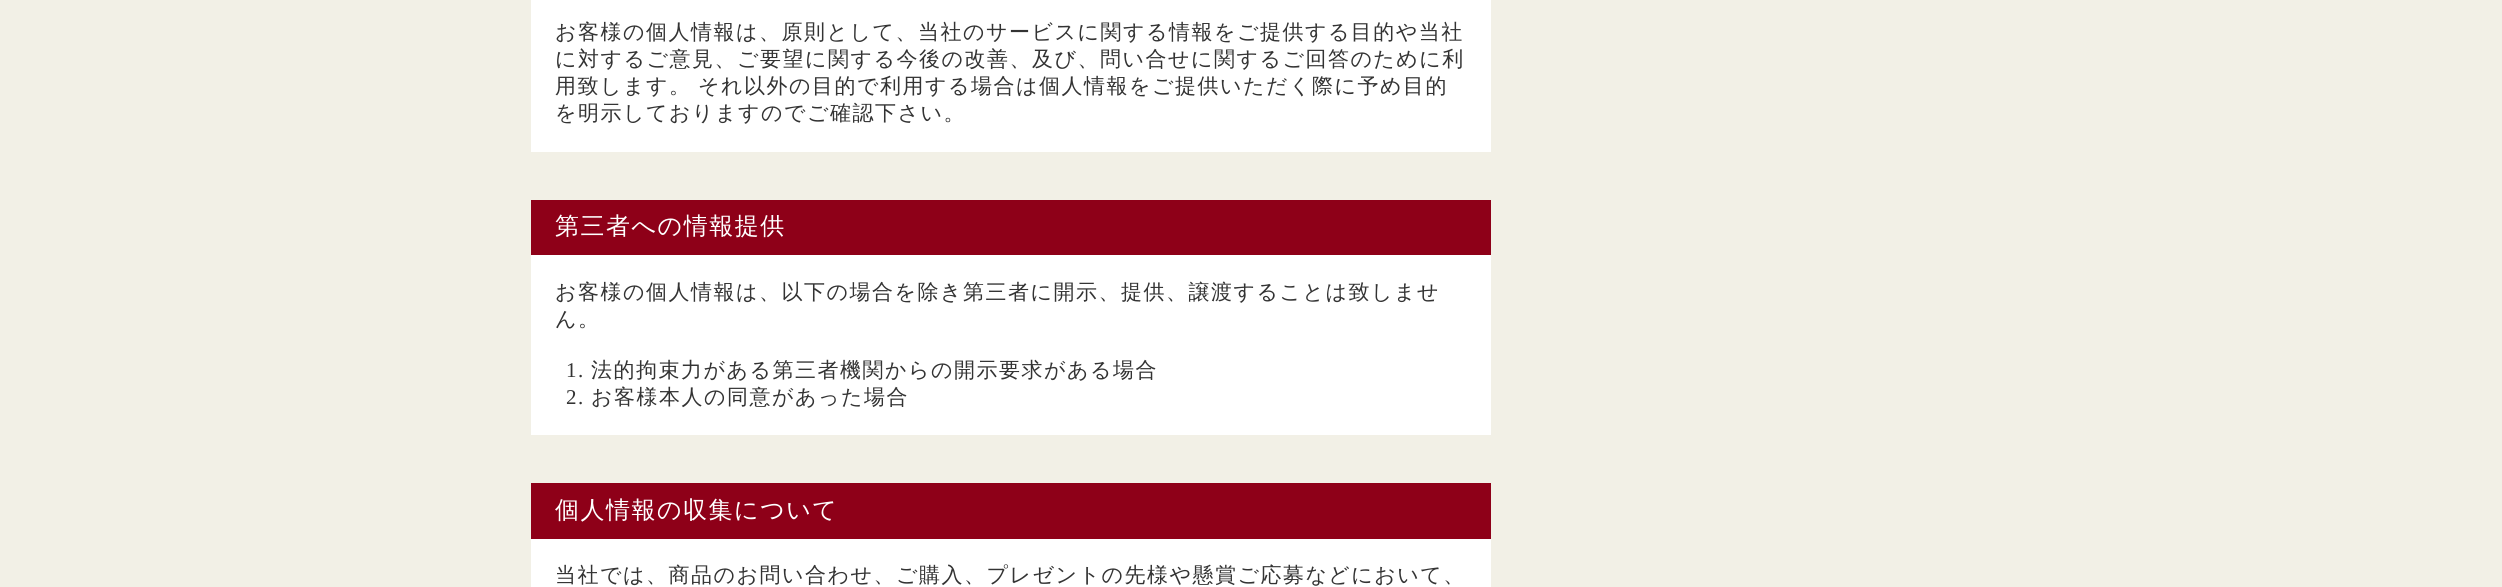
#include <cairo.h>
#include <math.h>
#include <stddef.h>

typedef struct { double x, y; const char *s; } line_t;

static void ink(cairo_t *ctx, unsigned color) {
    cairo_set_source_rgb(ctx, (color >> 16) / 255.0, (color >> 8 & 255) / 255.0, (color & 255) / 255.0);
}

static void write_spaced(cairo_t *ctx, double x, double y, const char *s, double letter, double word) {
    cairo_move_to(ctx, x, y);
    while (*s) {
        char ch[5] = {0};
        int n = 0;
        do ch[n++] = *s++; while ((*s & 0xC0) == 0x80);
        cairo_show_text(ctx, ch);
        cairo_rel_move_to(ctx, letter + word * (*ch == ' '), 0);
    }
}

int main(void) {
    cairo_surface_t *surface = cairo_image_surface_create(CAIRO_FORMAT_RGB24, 2502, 587);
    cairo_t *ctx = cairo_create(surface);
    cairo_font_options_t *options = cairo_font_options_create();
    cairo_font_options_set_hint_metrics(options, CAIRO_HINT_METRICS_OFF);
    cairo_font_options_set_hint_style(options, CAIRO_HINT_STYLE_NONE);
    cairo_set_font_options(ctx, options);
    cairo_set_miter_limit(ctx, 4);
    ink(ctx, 0xF2F0E6);
    cairo_paint(ctx);
    ink(ctx, 0xFFFFFF);
    cairo_rectangle(ctx, 531, 0, 960, 152);
    cairo_fill(ctx);
    cairo_select_font_face(ctx, "WenQuanYi Zen Hei Medium", CAIRO_FONT_SLANT_NORMAL, CAIRO_FONT_WEIGHT_NORMAL);
    cairo_set_font_size(ctx, 21);
    ink(ctx, 0x333333);
    {
        static const line_t items[] = {
            {555, 39, "お客様の個人情報は、原則として、当社のサービスに関する情報をご提供する目的や当社"},
            {555, 66, "に対するご意見、ご要望に関する今後の改善、及び、問い合せに関するご回答のために利"},
            {555, 93, "用致します。"},
            {698, 93, "それ以外の目的で利用する場合は個人情報をご提供いただく際に予め目的"},
            {555, 120, "を明示しておりますのでご確認下さい。"},
        };
        for (size_t i = 0; i < sizeof items / sizeof *items; i++) {
            write_spaced(ctx, items[i].x, items[i].y, items[i].s, 1.5, 0);
        }
    }
    ink(ctx, 0x8E0018);
    cairo_rectangle(ctx, 531, 200, 960, 55);
    cairo_fill(ctx);
    cairo_set_font_size(ctx, 24);
    ink(ctx, 0xFFFFFF);
    write_spaced(ctx, 555, 234, "第三者への情報提供", 1.5, 0);
    cairo_rectangle(ctx, 531, 255, 960, 180);
    cairo_fill(ctx);
    cairo_set_font_size(ctx, 21);
    ink(ctx, 0x333333);
    write_spaced(ctx, 555, 299, "お客様の個人情報は、以下の場合を除き第三者に開示、提供、譲渡することは致しませ", 1.5, 0);
    write_spaced(ctx, 555, 326, "ん。", 1.5, 0);
    cairo_select_font_face(ctx, "Liberation Serif", CAIRO_FONT_SLANT_NORMAL, CAIRO_FONT_WEIGHT_NORMAL);
    write_spaced(ctx, 566, 377, "1.", 1.5, 0);
    cairo_select_font_face(ctx, "WenQuanYi Zen Hei Medium", CAIRO_FONT_SLANT_NORMAL, CAIRO_FONT_WEIGHT_NORMAL);
    write_spaced(ctx, 591, 377, "法的拘束力がある第三者機関からの開示要求がある場合", 1.5, 0);
    cairo_select_font_face(ctx, "Liberation Serif", CAIRO_FONT_SLANT_NORMAL, CAIRO_FONT_WEIGHT_NORMAL);
    write_spaced(ctx, 566, 404, "2.", 1.5, 0);
    cairo_select_font_face(ctx, "WenQuanYi Zen Hei Medium", CAIRO_FONT_SLANT_NORMAL, CAIRO_FONT_WEIGHT_NORMAL);
    write_spaced(ctx, 591, 404, "お客様本人の同意があった場合", 1.5, 0);
    ink(ctx, 0x8E0018);
    cairo_rectangle(ctx, 531, 483, 960, 56);
    cairo_fill(ctx);
    cairo_set_font_size(ctx, 24);
    ink(ctx, 0xFFFFFF);
    write_spaced(ctx, 555, 518, "個人情報の収集について", 1.5, 0);
    cairo_rectangle(ctx, 531, 539, 960, 48);
    cairo_fill(ctx);
    cairo_set_font_size(ctx, 21);
    ink(ctx, 0x333333);
    write_spaced(ctx, 555, 582, "当社では、商品のお問い合わせ、ご購入、プレゼントの先様や懸賞ご応募などにおいて、", 1.5, 0);
    cairo_surface_write_to_png(surface, "image.png");
    cairo_font_options_destroy(options);
    cairo_destroy(ctx);
    cairo_surface_destroy(surface);
    return 0;
}
